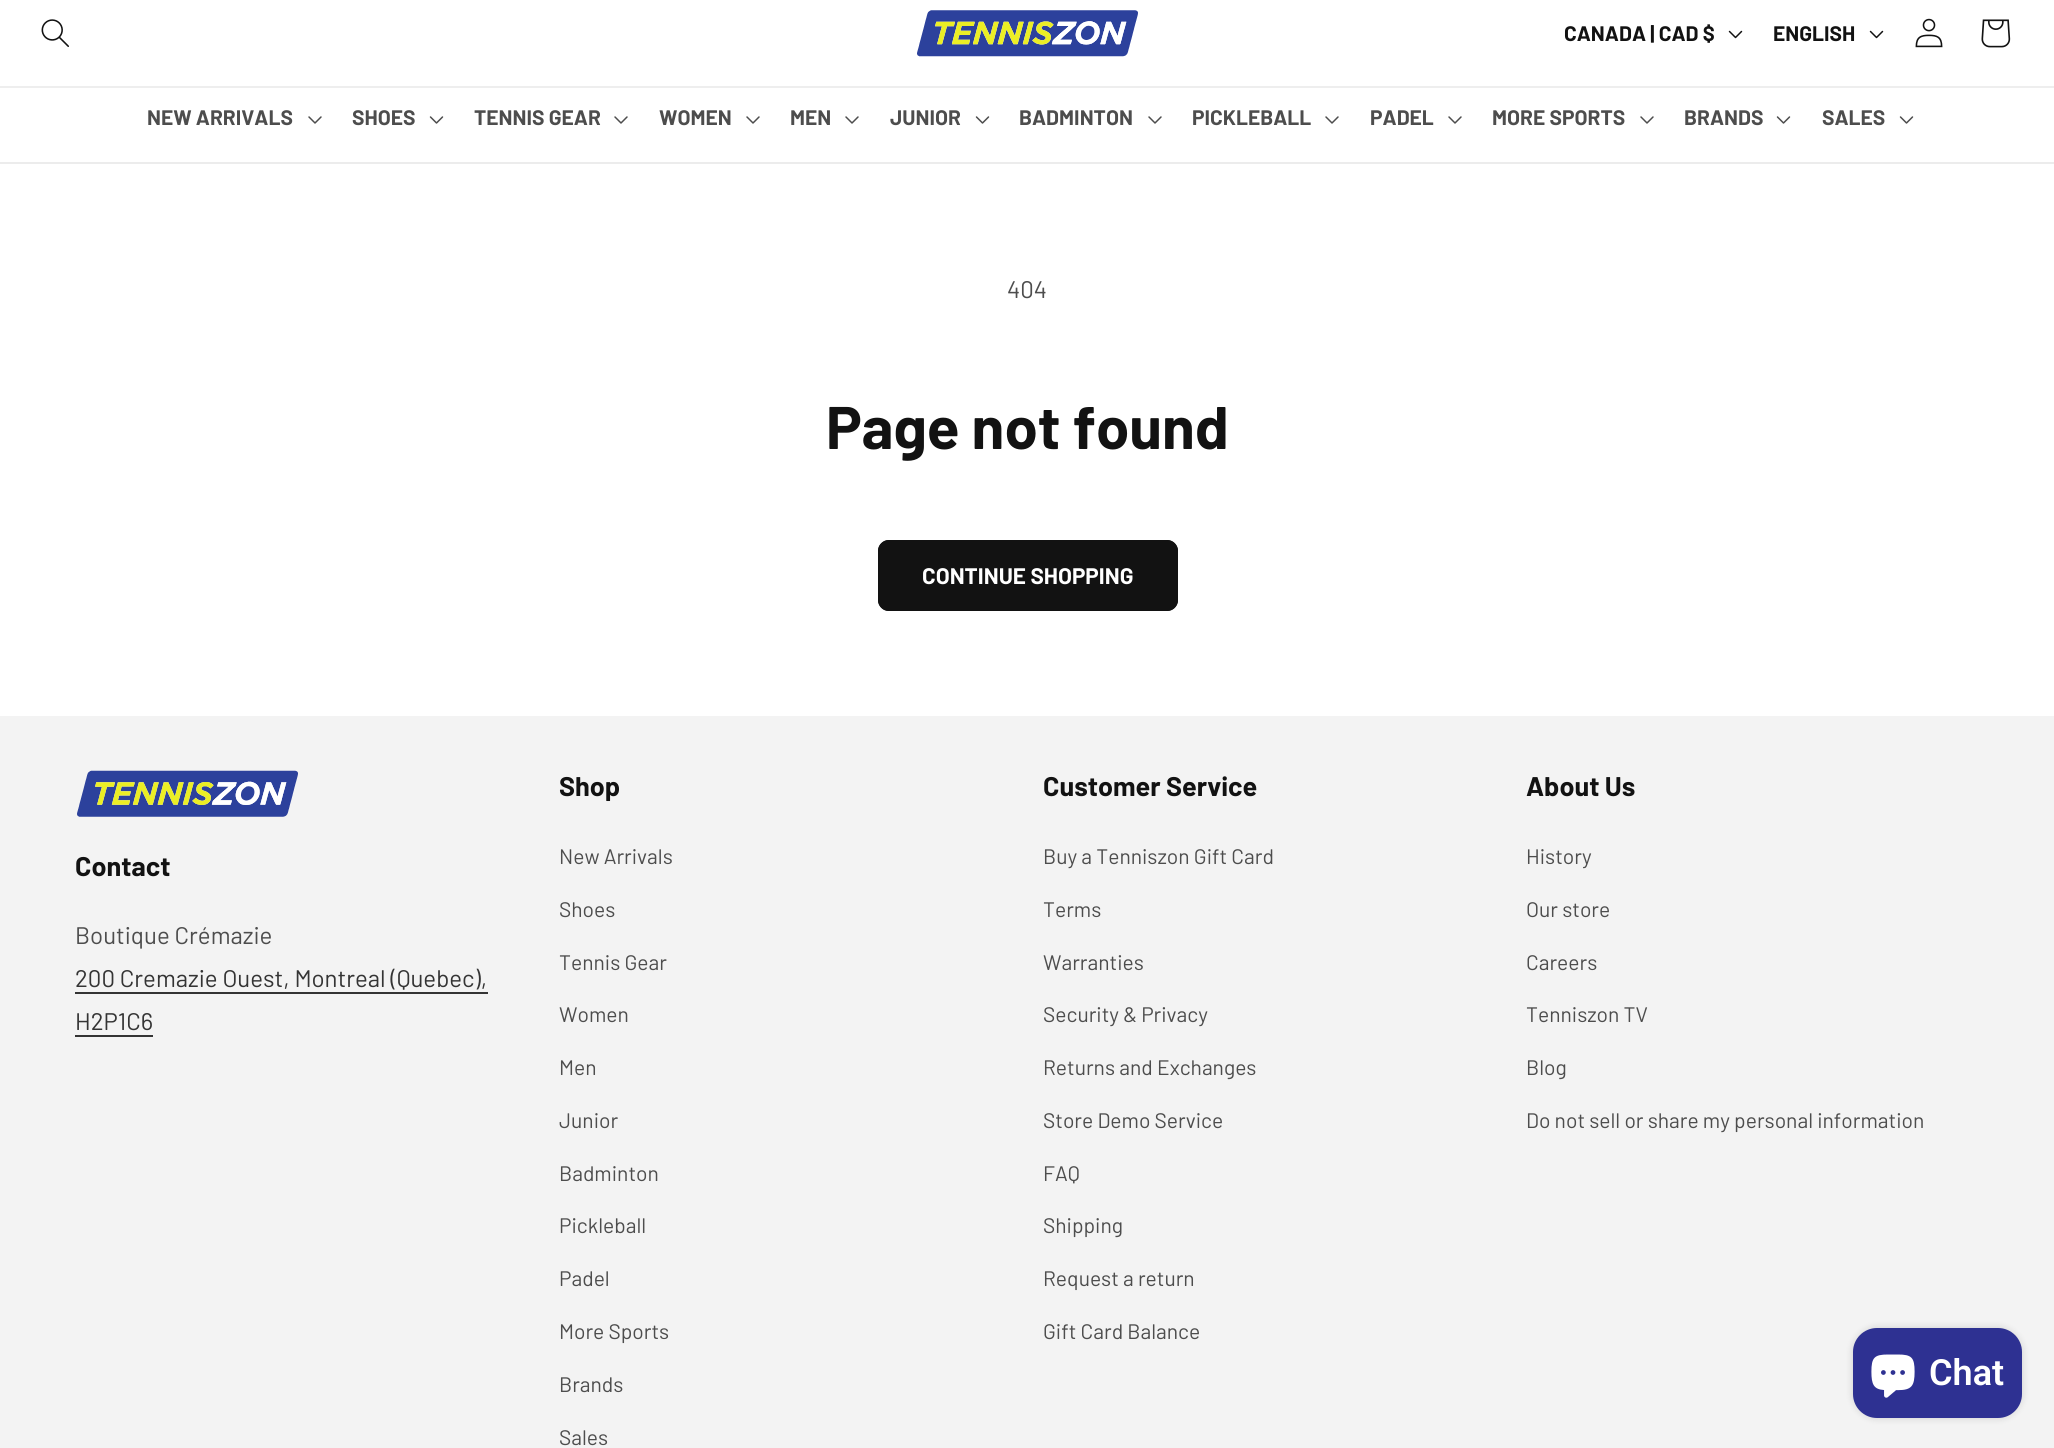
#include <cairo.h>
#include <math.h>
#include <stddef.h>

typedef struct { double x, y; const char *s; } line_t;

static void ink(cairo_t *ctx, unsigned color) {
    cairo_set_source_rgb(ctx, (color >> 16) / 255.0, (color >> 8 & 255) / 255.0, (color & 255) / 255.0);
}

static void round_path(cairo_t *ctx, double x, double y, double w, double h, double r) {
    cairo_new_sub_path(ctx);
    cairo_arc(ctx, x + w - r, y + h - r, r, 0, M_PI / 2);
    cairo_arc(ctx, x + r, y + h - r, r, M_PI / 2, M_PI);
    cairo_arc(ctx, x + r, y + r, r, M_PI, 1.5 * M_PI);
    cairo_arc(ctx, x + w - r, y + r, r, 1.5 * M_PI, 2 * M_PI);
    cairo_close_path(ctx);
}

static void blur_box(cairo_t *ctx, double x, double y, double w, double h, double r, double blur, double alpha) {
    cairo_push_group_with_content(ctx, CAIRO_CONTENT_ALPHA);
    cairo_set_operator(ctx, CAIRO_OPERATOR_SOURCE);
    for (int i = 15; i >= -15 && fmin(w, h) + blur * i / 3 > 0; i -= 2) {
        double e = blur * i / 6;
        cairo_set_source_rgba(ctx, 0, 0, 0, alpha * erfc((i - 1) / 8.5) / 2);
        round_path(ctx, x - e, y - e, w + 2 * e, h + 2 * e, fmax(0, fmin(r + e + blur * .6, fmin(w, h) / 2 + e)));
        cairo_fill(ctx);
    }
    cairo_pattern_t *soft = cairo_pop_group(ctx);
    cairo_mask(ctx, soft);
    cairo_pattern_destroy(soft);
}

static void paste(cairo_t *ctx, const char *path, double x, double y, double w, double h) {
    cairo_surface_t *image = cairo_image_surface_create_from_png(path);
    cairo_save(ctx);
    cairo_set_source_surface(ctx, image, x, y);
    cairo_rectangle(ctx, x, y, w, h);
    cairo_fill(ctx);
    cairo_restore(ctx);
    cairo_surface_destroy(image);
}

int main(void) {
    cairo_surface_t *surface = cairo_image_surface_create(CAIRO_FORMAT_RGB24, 2054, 1448);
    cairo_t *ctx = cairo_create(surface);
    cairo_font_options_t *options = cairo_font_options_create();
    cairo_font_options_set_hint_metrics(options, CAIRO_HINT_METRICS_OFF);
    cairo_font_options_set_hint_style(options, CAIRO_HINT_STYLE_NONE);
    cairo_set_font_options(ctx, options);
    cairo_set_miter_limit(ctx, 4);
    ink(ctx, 0xFFFFFF);
    cairo_paint(ctx);
    ink(ctx, 0xECECEC);
    cairo_rectangle(ctx, 0, 162, 2054, 2);
    cairo_fill(ctx);
    paste(ctx, "media/1.png", 41, 19, 28, 28);
    paste(ctx, "media/2.png", 917, 10, 221, 47);
    cairo_select_font_face(ctx, "Barlow", CAIRO_FONT_SLANT_NORMAL, CAIRO_FONT_WEIGHT_BOLD);
    cairo_set_font_size(ctx, 21);
    ink(ctx, 0x121212);
    cairo_move_to(ctx, 1564, 41);
    cairo_show_text(ctx, "CANADA | CAD $");
    paste(ctx, "media/3.png", 1728, 30, 15, 9);
    cairo_move_to(ctx, 1773, 41);
    cairo_show_text(ctx, "ENGLISH");
    paste(ctx, "media/3.png", 1869, 30, 15, 9);
    paste(ctx, "media/4.png", 1915, 18, 28, 30);
    paste(ctx, "media/5.png", 1981, 19, 30, 29);
    ink(ctx, 0xEEEEEE);
    cairo_rectangle(ctx, 0, 86, 2054, 2);
    cairo_fill(ctx);
    ink(ctx, 0x4D4D4D);
    cairo_move_to(ctx, 147, 125);
    cairo_show_text(ctx, "NEW ARRIVALS");
    paste(ctx, "media/6.png", 308, 116, 14, 8);
    cairo_move_to(ctx, 352, 125);
    cairo_show_text(ctx, "SHOES");
    paste(ctx, "media/7.png", 429, 116, 15, 8);
    cairo_move_to(ctx, 474, 125);
    cairo_show_text(ctx, "TENNIS GEAR");
    paste(ctx, "media/6.png", 614, 116, 14, 8);
    cairo_move_to(ctx, 659, 125);
    cairo_show_text(ctx, "WOMEN");
    paste(ctx, "media/6.png", 746, 116, 14, 8);
    cairo_move_to(ctx, 790, 125);
    cairo_show_text(ctx, "MEN");
    paste(ctx, "media/6.png", 845, 116, 14, 8);
    cairo_move_to(ctx, 890, 125);
    cairo_show_text(ctx, "JUNIOR");
    paste(ctx, "media/7.png", 975, 116, 15, 8);
    cairo_move_to(ctx, 1019, 125);
    cairo_show_text(ctx, "BADMINTON");
    paste(ctx, "media/6.png", 1148, 116, 14, 8);
    cairo_move_to(ctx, 1192, 125);
    cairo_show_text(ctx, "PICKLEBALL");
    paste(ctx, "media/6.png", 1325, 116, 14, 8);
    cairo_move_to(ctx, 1370, 125);
    cairo_show_text(ctx, "PADEL");
    paste(ctx, "media/6.png", 1448, 116, 14, 8);
    cairo_move_to(ctx, 1492, 125);
    cairo_show_text(ctx, "MORE SPORTS");
    paste(ctx, "media/6.png", 1640, 116, 14, 8);
    cairo_move_to(ctx, 1684, 125);
    cairo_show_text(ctx, "BRANDS");
    paste(ctx, "media/7.png", 1776, 116, 15, 8);
    cairo_move_to(ctx, 1822, 125);
    cairo_show_text(ctx, "SALES");
    paste(ctx, "media/7.png", 1899, 116, 15, 8);
    cairo_select_font_face(ctx, "Barlow", CAIRO_FONT_SLANT_NORMAL, CAIRO_FONT_WEIGHT_NORMAL);
    cairo_set_font_size(ctx, 24);
    cairo_move_to(ctx, 1007, 298);
    cairo_show_text(ctx, "404");
    cairo_select_font_face(ctx, "Barlow", CAIRO_FONT_SLANT_NORMAL, CAIRO_FONT_WEIGHT_BOLD);
    cairo_set_font_size(ctx, 60);
    ink(ctx, 0x121212);
    cairo_move_to(ctx, 826, 449);
    cairo_show_text(ctx, "Page not found");
    round_path(ctx, 878, 540, 300, 71, 11);
    cairo_fill(ctx);
    round_path(ctx, 879, 541, 298, 69, 10);
    cairo_stroke(ctx);
    cairo_set_font_size(ctx, 22.5);
    ink(ctx, 0xFFFFFF);
    cairo_move_to(ctx, 922, 584);
    cairo_show_text(ctx, "CONTINUE SHOPPING");
    ink(ctx, 0xF3F3F3);
    cairo_rectangle(ctx, 0, 716, 2054, 732);
    cairo_fill(ctx);
    paste(ctx, "media/8.png", 77, 770, 221, 47);
    cairo_set_font_size(ctx, 27);
    ink(ctx, 0x121212);
    cairo_move_to(ctx, 75, 876);
    cairo_show_text(ctx, "Contact");
    cairo_select_font_face(ctx, "Barlow", CAIRO_FONT_SLANT_NORMAL, CAIRO_FONT_WEIGHT_NORMAL);
    cairo_set_font_size(ctx, 24);
    ink(ctx, 0x4D4D4D);
    cairo_move_to(ctx, 75, 944);
    cairo_show_text(ctx, "Boutique Crémazie");
    ink(ctx, 0x343434);
    cairo_move_to(ctx, 75, 987);
    cairo_show_text(ctx, "200 Cremazie Ouest, Montreal (Quebec),");
    cairo_rectangle(ctx, 75, 992, 413, 2);
    cairo_fill(ctx);
    cairo_move_to(ctx, 75, 1030);
    cairo_show_text(ctx, "H2P1C6");
    cairo_rectangle(ctx, 75, 1035, 78, 2);
    cairo_fill(ctx);
    cairo_select_font_face(ctx, "Barlow", CAIRO_FONT_SLANT_NORMAL, CAIRO_FONT_WEIGHT_BOLD);
    cairo_set_font_size(ctx, 27);
    ink(ctx, 0x121212);
    cairo_move_to(ctx, 559, 796);
    cairo_show_text(ctx, "Shop");
    cairo_select_font_face(ctx, "Barlow", CAIRO_FONT_SLANT_NORMAL, CAIRO_FONT_WEIGHT_NORMAL);
    cairo_set_font_size(ctx, 21);
    ink(ctx, 0x4D4D4D);
    {
        static const line_t items[] = {
            {559, 864, "New Arrivals"},
            {559, 917, "Shoes"},
            {559, 970, "Tennis Gear"},
            {559, 1022, "Women"},
            {559, 1075, "Men"},
            {559, 1128, "Junior"},
            {559, 1181, "Badminton"},
            {559, 1233, "Pickleball"},
            {559, 1286, "Padel"},
            {559, 1339, "More Sports"},
            {559, 1392, "Brands"},
            {559, 1445, "Sales"},
        };
        for (size_t i = 0; i < sizeof items / sizeof *items; i++) {
            cairo_move_to(ctx, items[i].x, items[i].y);
            cairo_show_text(ctx, items[i].s);
        }
    }
    cairo_select_font_face(ctx, "Barlow", CAIRO_FONT_SLANT_NORMAL, CAIRO_FONT_WEIGHT_BOLD);
    cairo_set_font_size(ctx, 27);
    ink(ctx, 0x121212);
    cairo_move_to(ctx, 1043, 796);
    cairo_show_text(ctx, "Customer Service");
    cairo_select_font_face(ctx, "Barlow", CAIRO_FONT_SLANT_NORMAL, CAIRO_FONT_WEIGHT_NORMAL);
    cairo_set_font_size(ctx, 21);
    ink(ctx, 0x4D4D4D);
    {
        static const line_t items[] = {
            {1043, 864, "Buy a Tenniszon Gift Card"},
            {1043, 917, "Terms"},
            {1043, 970, "Warranties"},
            {1043, 1022, "Security & Privacy"},
            {1043, 1075, "Returns and Exchanges"},
            {1043, 1128, "Store Demo Service"},
            {1043, 1181, "FAQ"},
            {1043, 1233, "Shipping"},
            {1043, 1286, "Request a return"},
            {1043, 1339, "Gift Card Balance"},
        };
        for (size_t i = 0; i < sizeof items / sizeof *items; i++) {
            cairo_move_to(ctx, items[i].x, items[i].y);
            cairo_show_text(ctx, items[i].s);
        }
    }
    cairo_select_font_face(ctx, "Barlow", CAIRO_FONT_SLANT_NORMAL, CAIRO_FONT_WEIGHT_BOLD);
    cairo_set_font_size(ctx, 27);
    ink(ctx, 0x121212);
    cairo_move_to(ctx, 1526, 796);
    cairo_show_text(ctx, "About Us");
    cairo_select_font_face(ctx, "Barlow", CAIRO_FONT_SLANT_NORMAL, CAIRO_FONT_WEIGHT_NORMAL);
    cairo_set_font_size(ctx, 21);
    ink(ctx, 0x4D4D4D);
    {
        static const line_t items[] = {
            {1526, 864, "History"},
            {1526, 917, "Our store"},
            {1526, 970, "Careers"},
            {1526, 1022, "Tenniszon TV"},
            {1526, 1075, "Blog"},
            {1526, 1128, "Do not sell or share my personal information"},
        };
        for (size_t i = 0; i < sizeof items / sizeof *items; i++) {
            cairo_move_to(ctx, items[i].x, items[i].y);
            cairo_show_text(ctx, items[i].s);
        }
    }
    ink(ctx, 0x000000);
    blur_box(ctx, 1853, 1328, 169, 90, 24, 4, 0.15);
    ink(ctx, 0x2E3192);
    round_path(ctx, 1853, 1328, 169, 90, 24);
    cairo_fill(ctx);
    paste(ctx, "media/9.png", 1871, 1354, 44, 44);
    cairo_select_font_face(ctx, "Roboto SemiBold", CAIRO_FONT_SLANT_NORMAL, CAIRO_FONT_WEIGHT_NORMAL);
    cairo_set_font_size(ctx, 36);
    ink(ctx, 0xFFFFFF);
    cairo_move_to(ctx, 1929, 1385);
    cairo_show_text(ctx, "Chat");
    cairo_surface_write_to_png(surface, "image.png");
    cairo_font_options_destroy(options);
    cairo_destroy(ctx);
    cairo_surface_destroy(surface);
    return 0;
}
